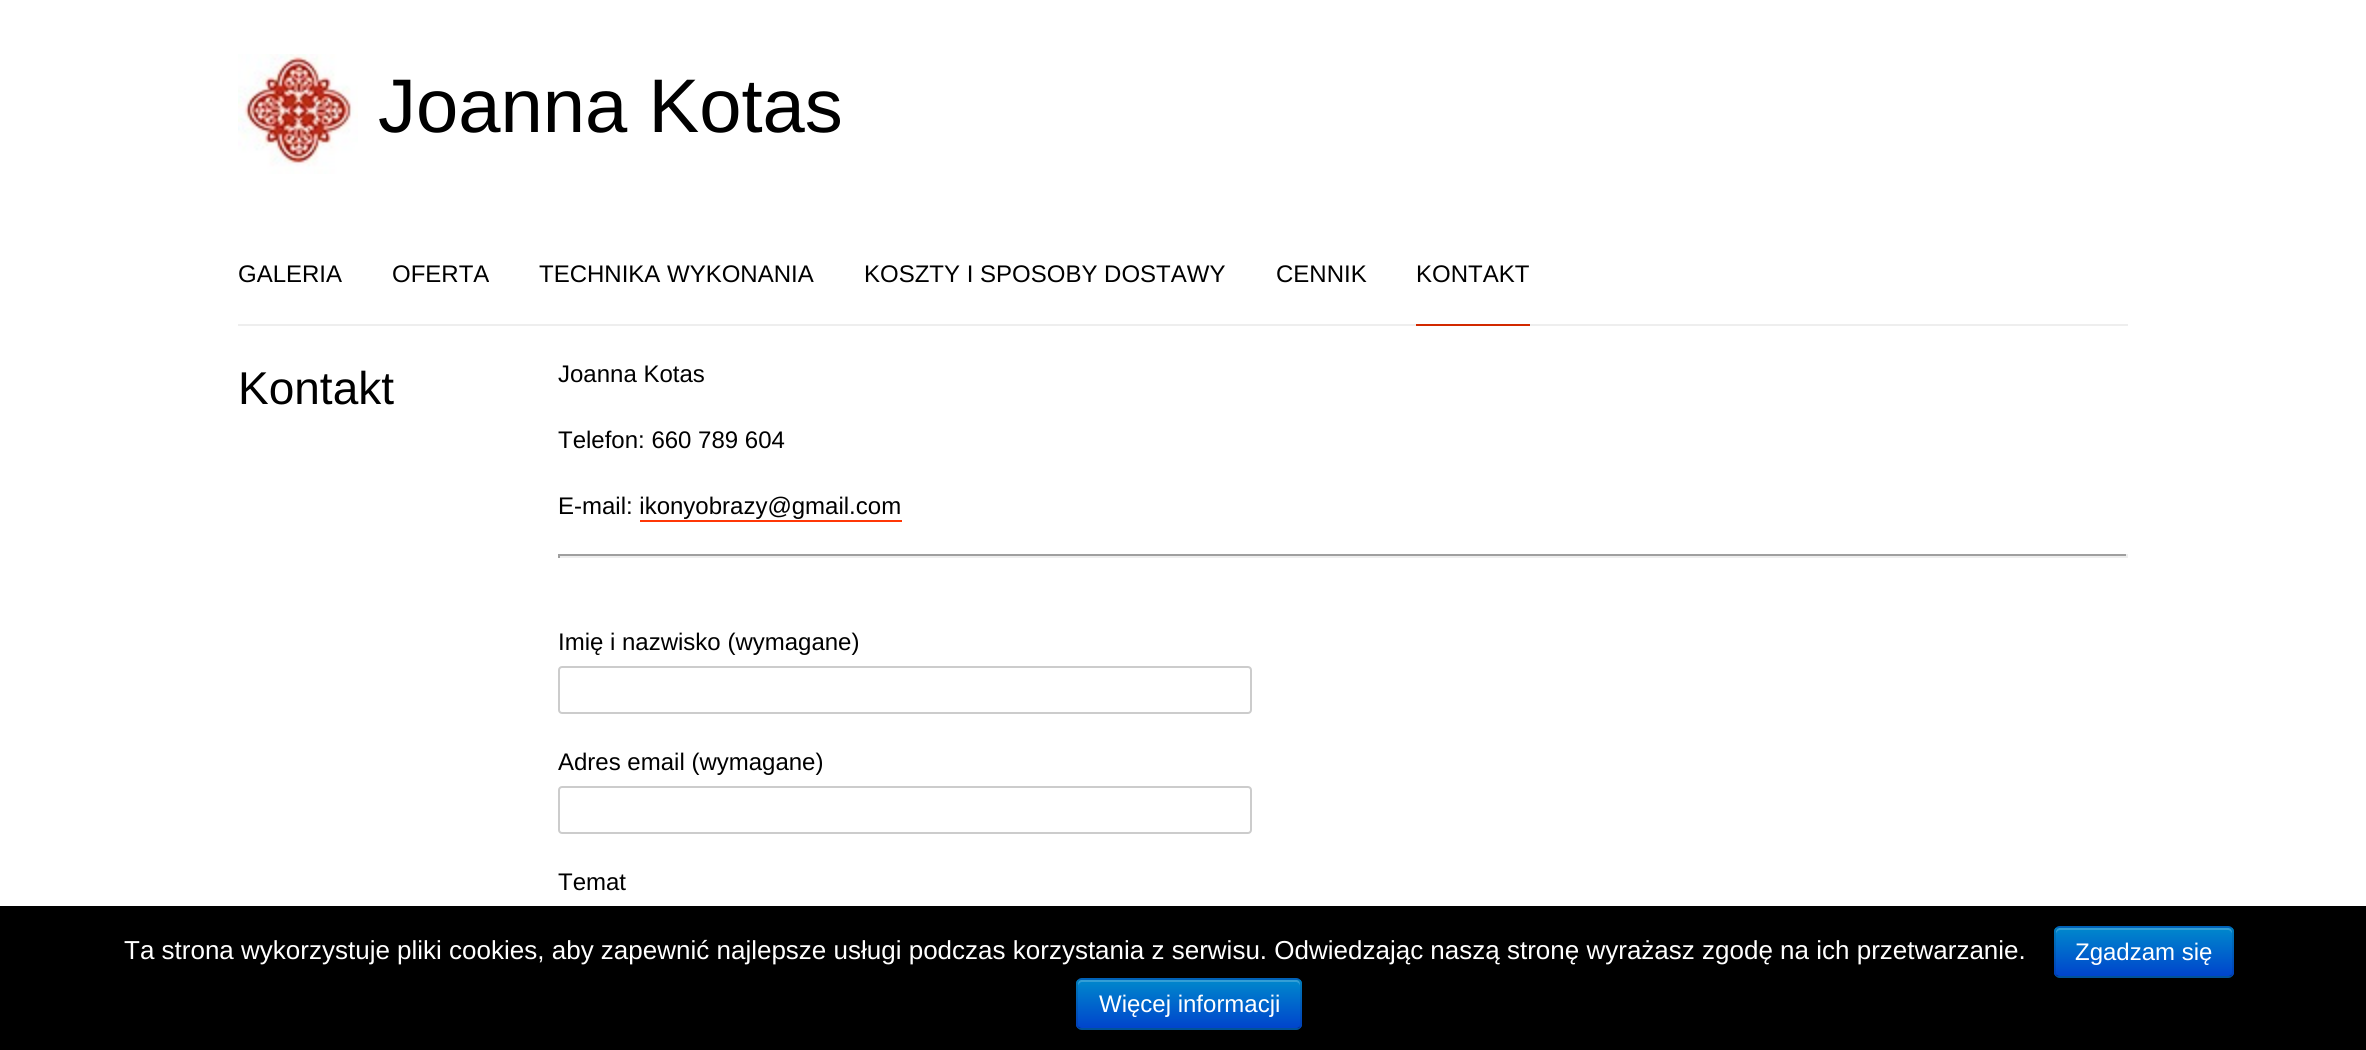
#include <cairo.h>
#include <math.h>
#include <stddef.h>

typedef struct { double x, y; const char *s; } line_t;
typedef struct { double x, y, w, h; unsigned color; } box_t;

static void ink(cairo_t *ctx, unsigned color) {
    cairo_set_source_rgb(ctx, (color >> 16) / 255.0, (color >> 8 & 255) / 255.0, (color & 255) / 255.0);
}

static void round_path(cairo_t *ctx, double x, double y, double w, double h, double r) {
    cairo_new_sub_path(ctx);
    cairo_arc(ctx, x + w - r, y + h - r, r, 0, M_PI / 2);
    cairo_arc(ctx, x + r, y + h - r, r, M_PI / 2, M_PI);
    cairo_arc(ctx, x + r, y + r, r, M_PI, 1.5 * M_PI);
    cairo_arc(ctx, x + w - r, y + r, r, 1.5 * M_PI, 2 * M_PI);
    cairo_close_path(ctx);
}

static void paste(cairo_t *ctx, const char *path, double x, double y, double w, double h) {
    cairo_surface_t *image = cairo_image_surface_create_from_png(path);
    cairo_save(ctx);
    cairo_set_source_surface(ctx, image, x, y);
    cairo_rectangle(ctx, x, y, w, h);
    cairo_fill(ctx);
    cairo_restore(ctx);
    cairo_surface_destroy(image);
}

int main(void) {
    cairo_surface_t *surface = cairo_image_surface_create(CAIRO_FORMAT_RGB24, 2366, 1050);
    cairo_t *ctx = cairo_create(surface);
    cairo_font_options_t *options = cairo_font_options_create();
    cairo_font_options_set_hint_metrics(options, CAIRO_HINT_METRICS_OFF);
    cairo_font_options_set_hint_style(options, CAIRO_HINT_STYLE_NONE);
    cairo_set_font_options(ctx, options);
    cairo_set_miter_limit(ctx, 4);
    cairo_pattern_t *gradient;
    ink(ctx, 0xFFFFFF);
    cairo_paint(ctx);
    paste(ctx, "media/1.png", 238, 54, 120, 120);
    cairo_select_font_face(ctx, "Liberation Sans", CAIRO_FONT_SLANT_NORMAL, CAIRO_FONT_WEIGHT_NORMAL);
    cairo_set_font_size(ctx, 76);
    ink(ctx, 0x000000);
    cairo_move_to(ctx, 378, 132);
    cairo_show_text(ctx, "Joanna Kotas");
    ink(ctx, 0xEEEEEE);
    cairo_rectangle(ctx, 238, 324, 1890, 2);
    cairo_fill(ctx);
    cairo_set_font_size(ctx, 24);
    ink(ctx, 0x000000);
    {
        static const line_t items[] = {
            {238, 282, "GALERIA"},
            {392, 282, "OFERTA"},
            {539, 282, "TECHNIKA WYKONANIA"},
            {864, 282, "KOSZTY I SPOSOBY DOSTAWY"},
            {1276, 282, "CENNIK"},
        };
        for (size_t i = 0; i < sizeof items / sizeof *items; i++) {
            cairo_move_to(ctx, items[i].x, items[i].y);
            cairo_show_text(ctx, items[i].s);
        }
    }
    ink(ctx, 0xD22900);
    cairo_rectangle(ctx, 1416, 324, 114, 2);
    cairo_fill(ctx);
    ink(ctx, 0x000000);
    cairo_move_to(ctx, 1416, 282);
    cairo_show_text(ctx, "KONTAKT");
    cairo_set_font_size(ctx, 46);
    cairo_move_to(ctx, 238, 404);
    cairo_show_text(ctx, "Kontakt");
    cairo_set_font_size(ctx, 24);
    {
        static const line_t items[] = {
            {558, 382, "Joanna Kotas"},
            {558, 448, "Telefon: 660 789 604"},
            {558, 514, "E-mail: ikonyobrazy@gmail.com"},
        };
        for (size_t i = 0; i < sizeof items / sizeof *items; i++) {
            cairo_move_to(ctx, items[i].x, items[i].y);
            cairo_show_text(ctx, items[i].s);
        }
    }
    {
        static const box_t items[] = {
            {640, 520, 262, 2, 0xFF3706},
            {558, 554, 1570, 2, 0x9F9F9F},
            {2126, 554, 2, 4, 0xEEEEEE},
            {558, 556, 1570, 2, 0xEEEEEE},
            {558, 554, 2, 4, 0x9F9F9F},
        };
        for (size_t i = 0; i < sizeof items / sizeof *items; i++) {
            ink(ctx, items[i].color);
            cairo_rectangle(ctx, items[i].x, items[i].y, items[i].w, items[i].h);
            cairo_fill(ctx);
        }
    }
    ink(ctx, 0x000000);
    cairo_move_to(ctx, 558, 650);
    cairo_show_text(ctx, "Imię i nazwisko (wymagane)");
    round_path(ctx, 559, 667, 692, 46, 3);
    ink(ctx, 0xCCCCCC);
    cairo_stroke(ctx);
    ink(ctx, 0x000000);
    cairo_move_to(ctx, 558, 770);
    cairo_show_text(ctx, "Adres email (wymagane)");
    round_path(ctx, 559, 787, 692, 46, 3);
    ink(ctx, 0xCCCCCC);
    cairo_stroke(ctx);
    ink(ctx, 0x000000);
    cairo_move_to(ctx, 558, 890);
    cairo_show_text(ctx, "Temat");
    cairo_rectangle(ctx, 0, 906, 2366, 144);
    cairo_fill(ctx);
    cairo_set_font_size(ctx, 26);
    ink(ctx, 0xFFFFFF);
    cairo_move_to(ctx, 124, 959);
    cairo_show_text(ctx, "Ta strona wykorzystuje pliki cookies, aby zapewnić najlepsze usługi podczas korzystania z serwisu. Odwiedzając naszą stronę wyrażasz zgodę na ich przetwarzanie.");
    ink(ctx, 0x006DCC);
    round_path(ctx, 2054, 926, 180, 52, 6);
    cairo_fill(ctx);
    cairo_save(ctx);
    round_path(ctx, 2054, 926, 180, 52, 6);
    cairo_clip(ctx);
    gradient = cairo_pattern_create_linear(2144, 928, 2144, 976);
    cairo_pattern_add_color_stop_rgba(gradient, 0, 0, 0.533, 0.8, 1);
    cairo_pattern_add_color_stop_rgba(gradient, 1, 0, 0.267, 0.8, 1);
    cairo_set_source(ctx, gradient);
    cairo_pattern_destroy(gradient);
    cairo_rectangle(ctx, 2054, 928, 180, 48);
    cairo_fill(ctx);
    cairo_restore(ctx);
    cairo_set_source_rgba(ctx, 1, 1, 1, 0.2);
    cairo_new_path(ctx);
    cairo_move_to(ctx, 2060, 930);
    cairo_line_to(ctx, 2228, 930);
    cairo_curve_to(ctx, 2230, 930, 2232, 932, 2232, 934);
    cairo_line_to(ctx, 2232, 932);
    cairo_curve_to(ctx, 2232, 930, 2230, 928, 2228, 928);
    cairo_line_to(ctx, 2060, 928);
    cairo_curve_to(ctx, 2058, 928, 2056, 930, 2056, 932);
    cairo_line_to(ctx, 2056, 934);
    cairo_curve_to(ctx, 2056, 932, 2058, 930, 2060, 930);
    cairo_close_path(ctx);
    cairo_fill(ctx);
    cairo_new_path(ctx);
    cairo_move_to(ctx, 2231.5, 975.5);
    cairo_curve_to(ctx, 2230.5, 976.5, 2229.5, 977, 2228, 977);
    cairo_line_to(ctx, 2060, 977);
    cairo_curve_to(ctx, 2058.5, 977, 2057.5, 976.5, 2056.5, 975.5);
    cairo_set_source_rgba(ctx, 0, 0, 0, 0.25);
    cairo_stroke(ctx);
    cairo_new_path(ctx);
    cairo_move_to(ctx, 2056.5, 975.5);
    cairo_curve_to(ctx, 2055.5, 974.5, 2055, 973.5, 2055, 972);
    cairo_line_to(ctx, 2055, 932);
    cairo_curve_to(ctx, 2055, 930.5, 2055.5, 929.5, 2056.5, 928.5);
    cairo_curve_to(ctx, 2057.5, 927.5, 2058.5, 927, 2060, 927);
    cairo_line_to(ctx, 2228, 927);
    cairo_curve_to(ctx, 2229.5, 927, 2230.5, 927.5, 2231.5, 928.5);
    cairo_curve_to(ctx, 2232.5, 929.5, 2233, 930.5, 2233, 932);
    cairo_line_to(ctx, 2233, 972);
    cairo_curve_to(ctx, 2233, 973.5, 2232.5, 974.5, 2231.5, 975.5);
    cairo_set_source_rgba(ctx, 0, 0, 0, 0.1);
    cairo_stroke(ctx);
    cairo_set_font_size(ctx, 24);
    ink(ctx, 0xFFFFFF);
    cairo_move_to(ctx, 2075, 960);
    cairo_show_text(ctx, "Zgadzam się");
    ink(ctx, 0x006DCC);
    round_path(ctx, 1076, 978, 226, 52, 6);
    cairo_fill(ctx);
    cairo_save(ctx);
    round_path(ctx, 1076, 978, 226, 52, 6);
    cairo_clip(ctx);
    gradient = cairo_pattern_create_linear(1189, 980, 1189, 1028);
    cairo_pattern_add_color_stop_rgba(gradient, 0, 0, 0.533, 0.8, 1);
    cairo_pattern_add_color_stop_rgba(gradient, 1, 0, 0.267, 0.8, 1);
    cairo_set_source(ctx, gradient);
    cairo_pattern_destroy(gradient);
    cairo_rectangle(ctx, 1076, 980, 226, 48);
    cairo_fill(ctx);
    cairo_restore(ctx);
    cairo_set_source_rgba(ctx, 1, 1, 1, 0.2);
    cairo_new_path(ctx);
    cairo_move_to(ctx, 1082, 982);
    cairo_line_to(ctx, 1296, 982);
    cairo_curve_to(ctx, 1298, 982, 1300, 984, 1300, 986);
    cairo_curve_to(ctx, 1300, 983, 1300, 981, 1297, 980);
    cairo_line_to(ctx, 1081, 980);
    cairo_curve_to(ctx, 1078, 981, 1078, 983, 1078, 986);
    cairo_curve_to(ctx, 1078, 984, 1080, 982, 1082, 982);
    cairo_close_path(ctx);
    cairo_fill(ctx);
    cairo_new_path(ctx);
    cairo_move_to(ctx, 1299.5, 1027.5);
    cairo_curve_to(ctx, 1298.5, 1028.5, 1297.5, 1029, 1296, 1029);
    cairo_line_to(ctx, 1082, 1029);
    cairo_curve_to(ctx, 1080.5, 1029, 1079.5, 1028.5, 1078.5, 1027.5);
    cairo_set_source_rgba(ctx, 0, 0, 0, 0.25);
    cairo_stroke(ctx);
    cairo_new_path(ctx);
    cairo_move_to(ctx, 1078.5, 1027.5);
    cairo_curve_to(ctx, 1077.5, 1026.5, 1077, 1025.5, 1077, 1024);
    cairo_line_to(ctx, 1077, 984);
    cairo_curve_to(ctx, 1077, 982.5, 1077.5, 981.5, 1078.5, 980.5);
    cairo_curve_to(ctx, 1079.5, 979.5, 1080.5, 979, 1082, 979);
    cairo_line_to(ctx, 1296, 979);
    cairo_curve_to(ctx, 1297.5, 979, 1298.5, 979.5, 1299.5, 980.5);
    cairo_curve_to(ctx, 1300.5, 981.5, 1301, 982.5, 1301, 984);
    cairo_line_to(ctx, 1301, 1024);
    cairo_curve_to(ctx, 1301, 1025.5, 1300.5, 1026.5, 1299.5, 1027.5);
    cairo_set_source_rgba(ctx, 0, 0, 0, 0.1);
    cairo_stroke(ctx);
    ink(ctx, 0xFFFFFF);
    cairo_move_to(ctx, 1099, 1012);
    cairo_show_text(ctx, "Więcej informacji");
    cairo_surface_write_to_png(surface, "image.png");
    cairo_font_options_destroy(options);
    cairo_destroy(ctx);
    cairo_surface_destroy(surface);
    return 0;
}
